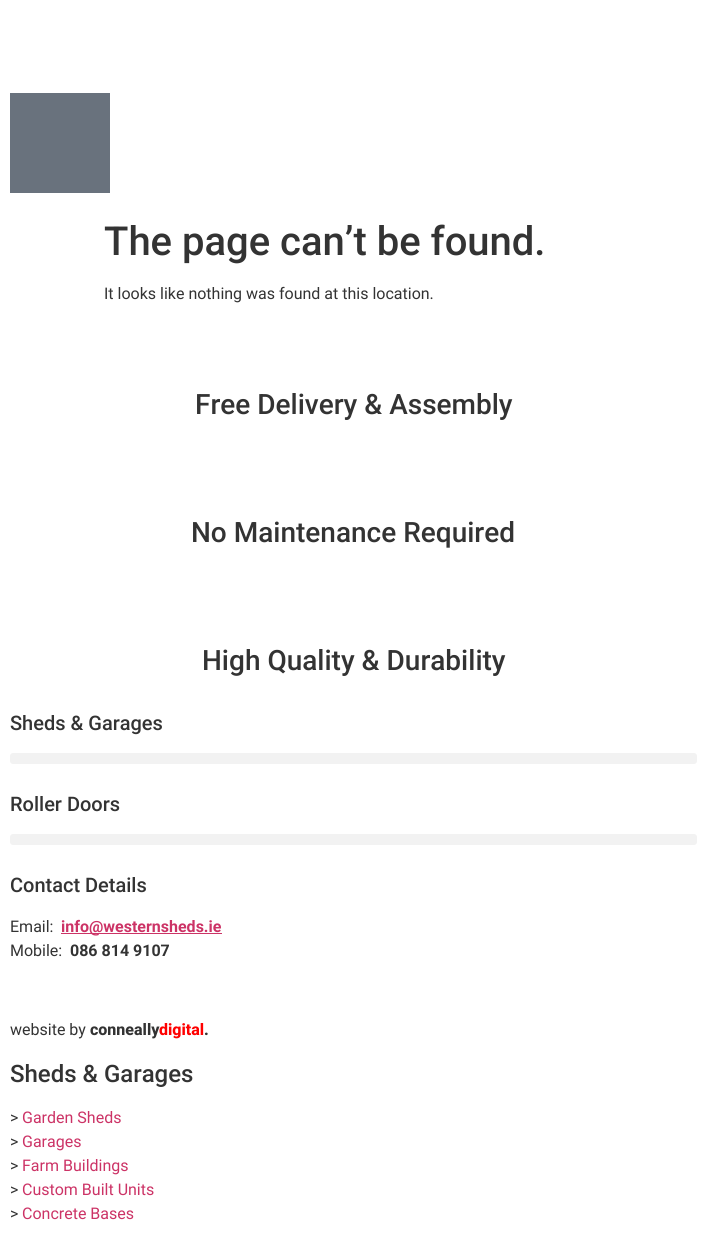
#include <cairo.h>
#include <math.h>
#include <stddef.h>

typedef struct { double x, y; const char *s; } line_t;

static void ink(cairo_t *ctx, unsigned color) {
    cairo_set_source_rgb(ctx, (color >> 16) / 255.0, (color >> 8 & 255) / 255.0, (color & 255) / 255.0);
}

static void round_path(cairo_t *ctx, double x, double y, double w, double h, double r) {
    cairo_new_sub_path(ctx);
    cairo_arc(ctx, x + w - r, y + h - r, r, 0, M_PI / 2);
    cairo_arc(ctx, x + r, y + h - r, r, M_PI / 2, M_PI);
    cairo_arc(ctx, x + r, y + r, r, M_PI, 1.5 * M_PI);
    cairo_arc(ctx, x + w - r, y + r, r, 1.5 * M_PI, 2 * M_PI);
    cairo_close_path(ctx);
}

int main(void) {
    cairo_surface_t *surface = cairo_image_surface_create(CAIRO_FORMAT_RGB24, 707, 1245);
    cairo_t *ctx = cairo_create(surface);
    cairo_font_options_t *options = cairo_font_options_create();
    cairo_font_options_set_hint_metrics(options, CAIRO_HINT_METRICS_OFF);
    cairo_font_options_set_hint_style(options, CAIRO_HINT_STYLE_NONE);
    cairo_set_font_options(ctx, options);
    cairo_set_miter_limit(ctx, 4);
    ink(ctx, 0xFFFFFF);
    cairo_paint(ctx);
    ink(ctx, 0x69727D);
    cairo_rectangle(ctx, 10, 93, 100, 100);
    cairo_fill(ctx);
    cairo_select_font_face(ctx, "Roboto Medium", CAIRO_FONT_SLANT_NORMAL, CAIRO_FONT_WEIGHT_NORMAL);
    cairo_set_font_size(ctx, 40);
    ink(ctx, 0x333333);
    cairo_move_to(ctx, 104, 255);
    cairo_show_text(ctx, "The page can’t be found.");
    cairo_select_font_face(ctx, "Roboto", CAIRO_FONT_SLANT_NORMAL, CAIRO_FONT_WEIGHT_NORMAL);
    cairo_set_font_size(ctx, 16);
    cairo_move_to(ctx, 104, 299);
    cairo_show_text(ctx, "It looks like nothing was found at this location.");
    cairo_select_font_face(ctx, "Roboto Medium", CAIRO_FONT_SLANT_NORMAL, CAIRO_FONT_WEIGHT_NORMAL);
    cairo_set_font_size(ctx, 28);
    {
        static const line_t items[] = {
            {195, 414, "Free Delivery & Assembly"},
            {191, 542, "No Maintenance Required"},
            {202, 670, "High Quality & Durability"},
        };
        for (size_t i = 0; i < sizeof items / sizeof *items; i++) {
            cairo_move_to(ctx, items[i].x, items[i].y);
            cairo_show_text(ctx, items[i].s);
        }
    }
    cairo_set_font_size(ctx, 20);
    cairo_move_to(ctx, 10, 730);
    cairo_show_text(ctx, "Sheds & Garages");
    ink(ctx, 0xF2F2F2);
    round_path(ctx, 10, 753, 687, 11, 3);
    cairo_fill(ctx);
    ink(ctx, 0x333333);
    cairo_move_to(ctx, 10, 811);
    cairo_show_text(ctx, "Roller Doors");
    ink(ctx, 0xF2F2F2);
    round_path(ctx, 10, 834, 687, 11, 3);
    cairo_fill(ctx);
    ink(ctx, 0x333333);
    cairo_move_to(ctx, 10, 892);
    cairo_show_text(ctx, "Contact Details");
    cairo_select_font_face(ctx, "Roboto", CAIRO_FONT_SLANT_NORMAL, CAIRO_FONT_WEIGHT_NORMAL);
    cairo_set_font_size(ctx, 16);
    cairo_move_to(ctx, 10, 932);
    cairo_show_text(ctx, "Email:");
    ink(ctx, 0xCC3366);
    cairo_rectangle(ctx, 61, 933, 161, 1);
    cairo_fill(ctx);
    cairo_select_font_face(ctx, "Roboto", CAIRO_FONT_SLANT_NORMAL, CAIRO_FONT_WEIGHT_BOLD);
    cairo_move_to(ctx, 61, 932);
    cairo_show_text(ctx, "info@westernsheds.ie");
    cairo_select_font_face(ctx, "Roboto", CAIRO_FONT_SLANT_NORMAL, CAIRO_FONT_WEIGHT_NORMAL);
    ink(ctx, 0x333333);
    cairo_move_to(ctx, 10, 956);
    cairo_show_text(ctx, "Mobile:");
    cairo_select_font_face(ctx, "Roboto", CAIRO_FONT_SLANT_NORMAL, CAIRO_FONT_WEIGHT_BOLD);
    cairo_move_to(ctx, 70, 956);
    cairo_show_text(ctx, "086 814 9107");
    cairo_select_font_face(ctx, "Roboto", CAIRO_FONT_SLANT_NORMAL, CAIRO_FONT_WEIGHT_NORMAL);
    cairo_move_to(ctx, 10, 1035);
    cairo_show_text(ctx, "website by");
    cairo_select_font_face(ctx, "Roboto ExtraBold", CAIRO_FONT_SLANT_NORMAL, CAIRO_FONT_WEIGHT_NORMAL);
    cairo_move_to(ctx, 90, 1035);
    cairo_show_text(ctx, "conneally");
    ink(ctx, 0xFF0000);
    cairo_move_to(ctx, 159, 1035);
    cairo_show_text(ctx, "digital");
    ink(ctx, 0x333333);
    cairo_move_to(ctx, 204, 1035);
    cairo_show_text(ctx, ".");
    cairo_select_font_face(ctx, "Roboto Medium", CAIRO_FONT_SLANT_NORMAL, CAIRO_FONT_WEIGHT_NORMAL);
    cairo_set_font_size(ctx, 24);
    cairo_move_to(ctx, 10, 1082);
    cairo_show_text(ctx, "Sheds & Garages");
    cairo_select_font_face(ctx, "Roboto", CAIRO_FONT_SLANT_NORMAL, CAIRO_FONT_WEIGHT_NORMAL);
    cairo_set_font_size(ctx, 16);
    cairo_move_to(ctx, 10, 1123);
    cairo_show_text(ctx, ">");
    ink(ctx, 0xCC3366);
    cairo_move_to(ctx, 22, 1123);
    cairo_show_text(ctx, "Garden Sheds");
    ink(ctx, 0x333333);
    cairo_move_to(ctx, 10, 1147);
    cairo_show_text(ctx, ">");
    ink(ctx, 0xCC3366);
    cairo_move_to(ctx, 22, 1147);
    cairo_show_text(ctx, "Garages");
    ink(ctx, 0x333333);
    cairo_move_to(ctx, 10, 1171);
    cairo_show_text(ctx, ">");
    ink(ctx, 0xCC3366);
    cairo_move_to(ctx, 22, 1171);
    cairo_show_text(ctx, "Farm Buildings");
    ink(ctx, 0x333333);
    cairo_move_to(ctx, 10, 1195);
    cairo_show_text(ctx, ">");
    ink(ctx, 0xCC3366);
    cairo_move_to(ctx, 22, 1195);
    cairo_show_text(ctx, "Custom Built Units");
    ink(ctx, 0x333333);
    cairo_move_to(ctx, 10, 1219);
    cairo_show_text(ctx, ">");
    ink(ctx, 0xCC3366);
    cairo_move_to(ctx, 22, 1219);
    cairo_show_text(ctx, "Concrete Bases");
    cairo_surface_write_to_png(surface, "image.png");
    cairo_font_options_destroy(options);
    cairo_destroy(ctx);
    cairo_surface_destroy(surface);
    return 0;
}
